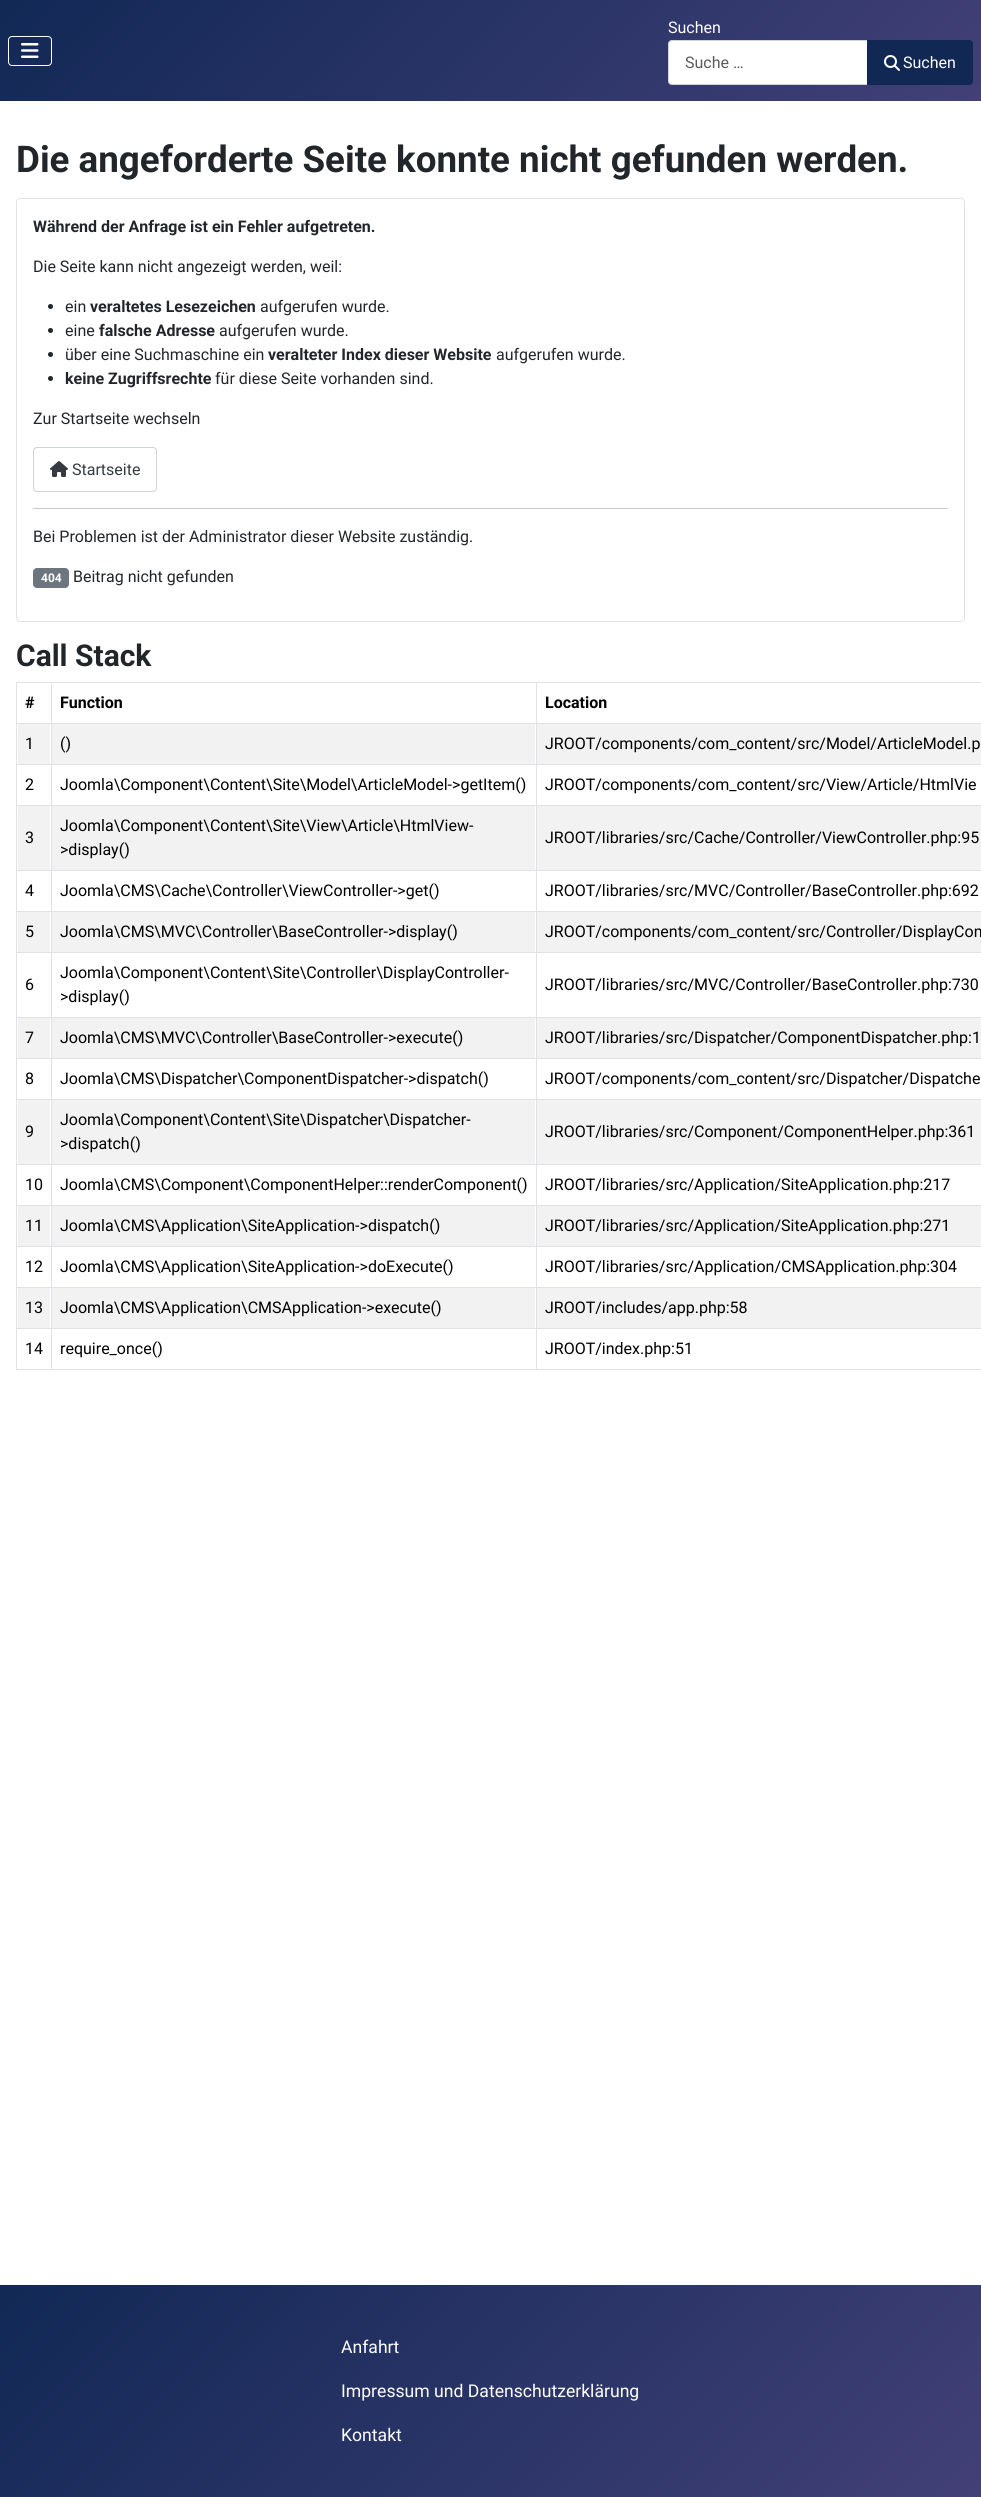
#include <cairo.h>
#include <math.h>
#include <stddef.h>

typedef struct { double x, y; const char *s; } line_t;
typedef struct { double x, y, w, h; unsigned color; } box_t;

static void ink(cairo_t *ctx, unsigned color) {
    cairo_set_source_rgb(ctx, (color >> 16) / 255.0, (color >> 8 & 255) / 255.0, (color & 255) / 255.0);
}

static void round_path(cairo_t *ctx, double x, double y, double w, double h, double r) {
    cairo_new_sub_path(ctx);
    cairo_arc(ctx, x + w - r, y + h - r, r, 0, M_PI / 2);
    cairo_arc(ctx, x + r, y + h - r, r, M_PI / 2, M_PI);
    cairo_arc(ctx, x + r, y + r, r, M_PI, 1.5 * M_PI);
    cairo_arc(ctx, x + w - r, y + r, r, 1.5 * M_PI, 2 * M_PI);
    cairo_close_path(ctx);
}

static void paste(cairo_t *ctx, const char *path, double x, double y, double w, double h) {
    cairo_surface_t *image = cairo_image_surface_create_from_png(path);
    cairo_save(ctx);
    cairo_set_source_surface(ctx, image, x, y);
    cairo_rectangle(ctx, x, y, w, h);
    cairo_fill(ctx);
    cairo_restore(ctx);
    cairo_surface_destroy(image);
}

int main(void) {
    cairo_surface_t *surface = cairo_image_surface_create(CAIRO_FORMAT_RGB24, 981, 2497);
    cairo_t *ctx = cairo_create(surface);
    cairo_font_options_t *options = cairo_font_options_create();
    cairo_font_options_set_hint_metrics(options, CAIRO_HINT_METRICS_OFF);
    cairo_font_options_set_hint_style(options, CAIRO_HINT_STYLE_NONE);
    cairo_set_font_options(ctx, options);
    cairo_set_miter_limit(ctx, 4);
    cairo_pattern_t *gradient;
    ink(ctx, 0xFFFFFF);
    cairo_paint(ctx);
    gradient = cairo_pattern_create_linear(220, -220, 761, 321);
    cairo_pattern_add_color_stop_rgba(gradient, 0, 0.067, 0.157, 0.333, 1);
    cairo_pattern_add_color_stop_rgba(gradient, 1, 0.259, 0.251, 0.467, 1);
    cairo_set_source(ctx, gradient);
    cairo_pattern_destroy(gradient);
    cairo_rectangle(ctx, 0, 0, 981, 101);
    cairo_fill(ctx);
    round_path(ctx, 8.5, 36.5, 43, 29, 3.5);
    ink(ctx, 0xFFFFFF);
    cairo_set_line_width(ctx, 1);
    cairo_stroke(ctx);
    paste(ctx, "media/1.png", 21, 43, 18, 15);
    cairo_select_font_face(ctx, "Roboto", CAIRO_FONT_SLANT_NORMAL, CAIRO_FONT_WEIGHT_NORMAL);
    cairo_set_font_size(ctx, 16);
    cairo_move_to(ctx, 668, 33);
    cairo_show_text(ctx, "Suchen");
    cairo_new_path(ctx);
    cairo_move_to(ctx, 672, 40.5);
    cairo_line_to(ctx, 867.5, 40.5);
    cairo_line_to(ctx, 867.5, 84.5);
    cairo_line_to(ctx, 672, 84.5);
    cairo_curve_to(ctx, 670, 84.5, 668.5, 83, 668.5, 81);
    cairo_line_to(ctx, 668.5, 44);
    cairo_curve_to(ctx, 668.5, 42, 670, 40.5, 672, 40.5);
    cairo_close_path(ctx);
    cairo_fill_preserve(ctx);
    ink(ctx, 0xCED4DA);
    cairo_stroke(ctx);
    ink(ctx, 0x595C5F);
    cairo_move_to(ctx, 685, 68);
    cairo_show_text(ctx, "Suche …");
    ink(ctx, 0x112855);
    cairo_new_path(ctx);
    cairo_move_to(ctx, 867.5, 40.5);
    cairo_line_to(ctx, 969, 40.5);
    cairo_curve_to(ctx, 971, 40.5, 972.5, 42, 972.5, 44);
    cairo_line_to(ctx, 972.5, 81);
    cairo_curve_to(ctx, 972.5, 83, 971, 84.5, 969, 84.5);
    cairo_line_to(ctx, 867.5, 84.5);
    cairo_close_path(ctx);
    cairo_fill_preserve(ctx);
    cairo_stroke(ctx);
    paste(ctx, "media/2.png", 884, 55, 16, 16);
    ink(ctx, 0xFFFFFF);
    cairo_move_to(ctx, 903, 68);
    cairo_show_text(ctx, "Suchen");
    cairo_select_font_face(ctx, "Roboto", CAIRO_FONT_SLANT_NORMAL, CAIRO_FONT_WEIGHT_BOLD);
    cairo_set_font_size(ctx, 36.75);
    ink(ctx, 0x22262A);
    cairo_move_to(ctx, 16, 172);
    cairo_show_text(ctx, "Die angeforderte Seite konnte nicht gefunden werden.");
    round_path(ctx, 16.5, 198.5, 948, 423, 3.5);
    ink(ctx, 0xDFE3E7);
    cairo_stroke(ctx);
    cairo_set_font_size(ctx, 16);
    ink(ctx, 0x22262A);
    cairo_move_to(ctx, 33, 232);
    cairo_show_text(ctx, "Während der Anfrage ist ein Fehler aufgetreten.");
    cairo_select_font_face(ctx, "Roboto", CAIRO_FONT_SLANT_NORMAL, CAIRO_FONT_WEIGHT_NORMAL);
    cairo_move_to(ctx, 33, 272);
    cairo_show_text(ctx, "Die Seite kann nicht angezeigt werden, weil:");
    cairo_new_path(ctx);
    cairo_arc(ctx, 50.5, 306.5, 2.5, 0, 2 * M_PI);
    cairo_fill(ctx);
    cairo_move_to(ctx, 65, 312);
    cairo_show_text(ctx, "ein");
    cairo_select_font_face(ctx, "Roboto", CAIRO_FONT_SLANT_NORMAL, CAIRO_FONT_WEIGHT_BOLD);
    cairo_move_to(ctx, 90, 312);
    cairo_show_text(ctx, "veraltetes Lesezeichen");
    cairo_select_font_face(ctx, "Roboto", CAIRO_FONT_SLANT_NORMAL, CAIRO_FONT_WEIGHT_NORMAL);
    cairo_move_to(ctx, 260, 312);
    cairo_show_text(ctx, "aufgerufen wurde.");
    cairo_new_path(ctx);
    cairo_arc(ctx, 50.5, 330.5, 2.5, 0, 2 * M_PI);
    cairo_fill(ctx);
    cairo_move_to(ctx, 65, 336);
    cairo_show_text(ctx, "eine");
    cairo_select_font_face(ctx, "Roboto", CAIRO_FONT_SLANT_NORMAL, CAIRO_FONT_WEIGHT_BOLD);
    cairo_move_to(ctx, 99, 336);
    cairo_show_text(ctx, "falsche Adresse");
    cairo_select_font_face(ctx, "Roboto", CAIRO_FONT_SLANT_NORMAL, CAIRO_FONT_WEIGHT_NORMAL);
    cairo_move_to(ctx, 219, 336);
    cairo_show_text(ctx, "aufgerufen wurde.");
    cairo_new_path(ctx);
    cairo_arc(ctx, 50.5, 354.5, 2.5, 0, 2 * M_PI);
    cairo_fill(ctx);
    cairo_move_to(ctx, 65, 360);
    cairo_show_text(ctx, "über eine Suchmaschine ein");
    cairo_select_font_face(ctx, "Roboto", CAIRO_FONT_SLANT_NORMAL, CAIRO_FONT_WEIGHT_BOLD);
    cairo_move_to(ctx, 268, 360);
    cairo_show_text(ctx, "veralteter Index dieser Website");
    cairo_select_font_face(ctx, "Roboto", CAIRO_FONT_SLANT_NORMAL, CAIRO_FONT_WEIGHT_NORMAL);
    cairo_move_to(ctx, 496, 360);
    cairo_show_text(ctx, "aufgerufen wurde.");
    cairo_new_path(ctx);
    cairo_arc(ctx, 50.5, 378.5, 2.5, 0, 2 * M_PI);
    cairo_fill(ctx);
    cairo_select_font_face(ctx, "Roboto", CAIRO_FONT_SLANT_NORMAL, CAIRO_FONT_WEIGHT_BOLD);
    cairo_move_to(ctx, 65, 384);
    cairo_show_text(ctx, "keine Zugriffsrechte");
    cairo_select_font_face(ctx, "Roboto", CAIRO_FONT_SLANT_NORMAL, CAIRO_FONT_WEIGHT_NORMAL);
    cairo_move_to(ctx, 215, 384);
    cairo_show_text(ctx, "für diese Seite vorhanden sind.");
    cairo_move_to(ctx, 33, 424);
    cairo_show_text(ctx, "Zur Startseite wechseln");
    round_path(ctx, 33.5, 447.5, 123, 44, 3.5);
    ink(ctx, 0xCED4DA);
    cairo_stroke(ctx);
    paste(ctx, "media/3.png", 50, 461, 18, 16);
    ink(ctx, 0x353B41);
    cairo_move_to(ctx, 72, 475);
    cairo_show_text(ctx, "Startseite");
    ink(ctx, 0xC8C9CA);
    cairo_rectangle(ctx, 33, 508, 915, 1);
    cairo_fill(ctx);
    ink(ctx, 0x22262A);
    cairo_move_to(ctx, 33, 542);
    cairo_show_text(ctx, "Bei Problemen ist der Administrator dieser Website zuständig.");
    ink(ctx, 0x6D757E);
    round_path(ctx, 33, 568, 36, 20, 4);
    cairo_fill(ctx);
    cairo_select_font_face(ctx, "Roboto", CAIRO_FONT_SLANT_NORMAL, CAIRO_FONT_WEIGHT_BOLD);
    cairo_set_font_size(ctx, 12);
    ink(ctx, 0xFFFFFF);
    cairo_move_to(ctx, 41, 582);
    cairo_show_text(ctx, "404");
    cairo_select_font_face(ctx, "Roboto", CAIRO_FONT_SLANT_NORMAL, CAIRO_FONT_WEIGHT_NORMAL);
    cairo_set_font_size(ctx, 16);
    ink(ctx, 0x22262A);
    cairo_move_to(ctx, 73, 582);
    cairo_show_text(ctx, "Beitrag nicht gefunden");
    cairo_select_font_face(ctx, "Roboto", CAIRO_FONT_SLANT_NORMAL, CAIRO_FONT_WEIGHT_BOLD);
    cairo_set_font_size(ctx, 30);
    cairo_move_to(ctx, 16, 666);
    cairo_show_text(ctx, "Call Stack");
    ink(ctx, 0xDFE3E7);
    cairo_rectangle(ctx, 16, 682, 965, 1);
    cairo_fill(ctx);
    cairo_set_font_size(ctx, 16);
    ink(ctx, 0x000000);
    {
        static const line_t items[] = {
            {25, 708, "#"},
            {60, 708, "Function"},
            {545, 708, "Location"},
        };
        for (size_t i = 0; i < sizeof items / sizeof *items; i++) {
            cairo_move_to(ctx, items[i].x, items[i].y);
            cairo_show_text(ctx, items[i].s);
        }
    }
    ink(ctx, 0xDFE3E7);
    cairo_rectangle(ctx, 16, 723, 965, 1);
    cairo_fill(ctx);
    ink(ctx, 0xF2F2F2);
    cairo_rectangle(ctx, 18, 724, 32, 40);
    cairo_fill(ctx);
    cairo_select_font_face(ctx, "Roboto", CAIRO_FONT_SLANT_NORMAL, CAIRO_FONT_WEIGHT_NORMAL);
    ink(ctx, 0x000000);
    cairo_move_to(ctx, 25, 749);
    cairo_show_text(ctx, "1");
    ink(ctx, 0xF2F2F2);
    cairo_rectangle(ctx, 52, 724, 483, 40);
    cairo_fill(ctx);
    ink(ctx, 0x000000);
    cairo_move_to(ctx, 60, 749);
    cairo_show_text(ctx, "()");
    ink(ctx, 0xF2F2F2);
    cairo_rectangle(ctx, 537, 724, 444, 40);
    cairo_fill(ctx);
    ink(ctx, 0x000000);
    cairo_move_to(ctx, 545, 749);
    cairo_show_text(ctx, "JROOT/components/com_content/src/Model/ArticleModel.p");
    ink(ctx, 0xDFE3E7);
    cairo_rectangle(ctx, 16, 764, 965, 1);
    cairo_fill(ctx);
    ink(ctx, 0x000000);
    {
        static const line_t items[] = {
            {25, 790, "2"},
            {60, 790, "Joomla\\Component\\Content\\Site\\Model\\ArticleModel->getItem()"},
            {545, 790, "JROOT/components/com_content/src/View/Article/HtmlVie"},
        };
        for (size_t i = 0; i < sizeof items / sizeof *items; i++) {
            cairo_move_to(ctx, items[i].x, items[i].y);
            cairo_show_text(ctx, items[i].s);
        }
    }
    ink(ctx, 0xDFE3E7);
    cairo_rectangle(ctx, 16, 805, 965, 1);
    cairo_fill(ctx);
    ink(ctx, 0xF2F2F2);
    cairo_rectangle(ctx, 18, 806, 32, 64);
    cairo_fill(ctx);
    ink(ctx, 0x000000);
    cairo_move_to(ctx, 25, 843);
    cairo_show_text(ctx, "3");
    ink(ctx, 0xF2F2F2);
    cairo_rectangle(ctx, 52, 806, 483, 64);
    cairo_fill(ctx);
    ink(ctx, 0x000000);
    cairo_move_to(ctx, 60, 831);
    cairo_show_text(ctx, "Joomla\\Component\\Content\\Site\\View\\Article\\HtmlView-");
    cairo_move_to(ctx, 60, 855);
    cairo_show_text(ctx, ">display()");
    ink(ctx, 0xF2F2F2);
    cairo_rectangle(ctx, 537, 806, 444, 64);
    cairo_fill(ctx);
    ink(ctx, 0x000000);
    cairo_move_to(ctx, 545, 843);
    cairo_show_text(ctx, "JROOT/libraries/src/Cache/Controller/ViewController.php:95");
    ink(ctx, 0xDFE3E7);
    cairo_rectangle(ctx, 16, 870, 965, 1);
    cairo_fill(ctx);
    ink(ctx, 0x000000);
    {
        static const line_t items[] = {
            {25, 896, "4"},
            {60, 896, "Joomla\\CMS\\Cache\\Controller\\ViewController->get()"},
            {545, 896, "JROOT/libraries/src/MVC/Controller/BaseController.php:692"},
        };
        for (size_t i = 0; i < sizeof items / sizeof *items; i++) {
            cairo_move_to(ctx, items[i].x, items[i].y);
            cairo_show_text(ctx, items[i].s);
        }
    }
    ink(ctx, 0xDFE3E7);
    cairo_rectangle(ctx, 16, 911, 965, 1);
    cairo_fill(ctx);
    ink(ctx, 0xF2F2F2);
    cairo_rectangle(ctx, 18, 912, 32, 40);
    cairo_fill(ctx);
    ink(ctx, 0x000000);
    cairo_move_to(ctx, 25, 937);
    cairo_show_text(ctx, "5");
    ink(ctx, 0xF2F2F2);
    cairo_rectangle(ctx, 52, 912, 483, 40);
    cairo_fill(ctx);
    ink(ctx, 0x000000);
    cairo_move_to(ctx, 60, 937);
    cairo_show_text(ctx, "Joomla\\CMS\\MVC\\Controller\\BaseController->display()");
    ink(ctx, 0xF2F2F2);
    cairo_rectangle(ctx, 537, 912, 444, 40);
    cairo_fill(ctx);
    ink(ctx, 0x000000);
    cairo_move_to(ctx, 545, 937);
    cairo_show_text(ctx, "JROOT/components/com_content/src/Controller/DisplayCon");
    ink(ctx, 0xDFE3E7);
    cairo_rectangle(ctx, 16, 952, 965, 1);
    cairo_fill(ctx);
    ink(ctx, 0x000000);
    {
        static const line_t items[] = {
            {25, 990, "6"},
            {60, 978, "Joomla\\Component\\Content\\Site\\Controller\\DisplayController-"},
            {60, 1002, ">display()"},
            {545, 990, "JROOT/libraries/src/MVC/Controller/BaseController.php:730"},
        };
        for (size_t i = 0; i < sizeof items / sizeof *items; i++) {
            cairo_move_to(ctx, items[i].x, items[i].y);
            cairo_show_text(ctx, items[i].s);
        }
    }
    ink(ctx, 0xDFE3E7);
    cairo_rectangle(ctx, 16, 1017, 965, 1);
    cairo_fill(ctx);
    ink(ctx, 0xF2F2F2);
    cairo_rectangle(ctx, 18, 1018, 32, 40);
    cairo_fill(ctx);
    ink(ctx, 0x000000);
    cairo_move_to(ctx, 25, 1043);
    cairo_show_text(ctx, "7");
    ink(ctx, 0xF2F2F2);
    cairo_rectangle(ctx, 52, 1018, 483, 40);
    cairo_fill(ctx);
    ink(ctx, 0x000000);
    cairo_move_to(ctx, 60, 1043);
    cairo_show_text(ctx, "Joomla\\CMS\\MVC\\Controller\\BaseController->execute()");
    ink(ctx, 0xF2F2F2);
    cairo_rectangle(ctx, 537, 1018, 444, 40);
    cairo_fill(ctx);
    ink(ctx, 0x000000);
    cairo_move_to(ctx, 545, 1043);
    cairo_show_text(ctx, "JROOT/libraries/src/Dispatcher/ComponentDispatcher.php:1");
    ink(ctx, 0xDFE3E7);
    cairo_rectangle(ctx, 16, 1058, 965, 1);
    cairo_fill(ctx);
    ink(ctx, 0x000000);
    {
        static const line_t items[] = {
            {25, 1084, "8"},
            {60, 1084, "Joomla\\CMS\\Dispatcher\\ComponentDispatcher->dispatch()"},
            {545, 1084, "JROOT/components/com_content/src/Dispatcher/Dispatche"},
        };
        for (size_t i = 0; i < sizeof items / sizeof *items; i++) {
            cairo_move_to(ctx, items[i].x, items[i].y);
            cairo_show_text(ctx, items[i].s);
        }
    }
    ink(ctx, 0xDFE3E7);
    cairo_rectangle(ctx, 16, 1099, 965, 1);
    cairo_fill(ctx);
    ink(ctx, 0xF2F2F2);
    cairo_rectangle(ctx, 18, 1100, 32, 64);
    cairo_fill(ctx);
    ink(ctx, 0x000000);
    cairo_move_to(ctx, 25, 1137);
    cairo_show_text(ctx, "9");
    ink(ctx, 0xF2F2F2);
    cairo_rectangle(ctx, 52, 1100, 483, 64);
    cairo_fill(ctx);
    ink(ctx, 0x000000);
    cairo_move_to(ctx, 60, 1125);
    cairo_show_text(ctx, "Joomla\\Component\\Content\\Site\\Dispatcher\\Dispatcher-");
    cairo_move_to(ctx, 60, 1149);
    cairo_show_text(ctx, ">dispatch()");
    ink(ctx, 0xF2F2F2);
    cairo_rectangle(ctx, 537, 1100, 444, 64);
    cairo_fill(ctx);
    ink(ctx, 0x000000);
    cairo_move_to(ctx, 545, 1137);
    cairo_show_text(ctx, "JROOT/libraries/src/Component/ComponentHelper.php:361");
    ink(ctx, 0xDFE3E7);
    cairo_rectangle(ctx, 16, 1164, 965, 1);
    cairo_fill(ctx);
    ink(ctx, 0x000000);
    {
        static const line_t items[] = {
            {25, 1190, "10"},
            {60, 1190, "Joomla\\CMS\\Component\\ComponentHelper::renderComponent()"},
            {545, 1190, "JROOT/libraries/src/Application/SiteApplication.php:217"},
        };
        for (size_t i = 0; i < sizeof items / sizeof *items; i++) {
            cairo_move_to(ctx, items[i].x, items[i].y);
            cairo_show_text(ctx, items[i].s);
        }
    }
    ink(ctx, 0xDFE3E7);
    cairo_rectangle(ctx, 16, 1205, 965, 1);
    cairo_fill(ctx);
    ink(ctx, 0xF2F2F2);
    cairo_rectangle(ctx, 18, 1206, 32, 40);
    cairo_fill(ctx);
    ink(ctx, 0x000000);
    cairo_move_to(ctx, 25, 1231);
    cairo_show_text(ctx, "11");
    ink(ctx, 0xF2F2F2);
    cairo_rectangle(ctx, 52, 1206, 483, 40);
    cairo_fill(ctx);
    ink(ctx, 0x000000);
    cairo_move_to(ctx, 60, 1231);
    cairo_show_text(ctx, "Joomla\\CMS\\Application\\SiteApplication->dispatch()");
    ink(ctx, 0xF2F2F2);
    cairo_rectangle(ctx, 537, 1206, 444, 40);
    cairo_fill(ctx);
    ink(ctx, 0x000000);
    cairo_move_to(ctx, 545, 1231);
    cairo_show_text(ctx, "JROOT/libraries/src/Application/SiteApplication.php:271");
    ink(ctx, 0xDFE3E7);
    cairo_rectangle(ctx, 16, 1246, 965, 1);
    cairo_fill(ctx);
    ink(ctx, 0x000000);
    {
        static const line_t items[] = {
            {25, 1272, "12"},
            {60, 1272, "Joomla\\CMS\\Application\\SiteApplication->doExecute()"},
            {545, 1272, "JROOT/libraries/src/Application/CMSApplication.php:304"},
        };
        for (size_t i = 0; i < sizeof items / sizeof *items; i++) {
            cairo_move_to(ctx, items[i].x, items[i].y);
            cairo_show_text(ctx, items[i].s);
        }
    }
    ink(ctx, 0xDFE3E7);
    cairo_rectangle(ctx, 16, 1287, 965, 1);
    cairo_fill(ctx);
    ink(ctx, 0xF2F2F2);
    cairo_rectangle(ctx, 18, 1288, 32, 40);
    cairo_fill(ctx);
    ink(ctx, 0x000000);
    cairo_move_to(ctx, 25, 1313);
    cairo_show_text(ctx, "13");
    ink(ctx, 0xF2F2F2);
    cairo_rectangle(ctx, 52, 1288, 483, 40);
    cairo_fill(ctx);
    ink(ctx, 0x000000);
    cairo_move_to(ctx, 60, 1313);
    cairo_show_text(ctx, "Joomla\\CMS\\Application\\CMSApplication->execute()");
    ink(ctx, 0xF2F2F2);
    cairo_rectangle(ctx, 537, 1288, 444, 40);
    cairo_fill(ctx);
    ink(ctx, 0x000000);
    cairo_move_to(ctx, 545, 1313);
    cairo_show_text(ctx, "JROOT/includes/app.php:58");
    {
        static const box_t items[] = {
            {16, 1328, 965, 1, 0xDFE3E7},
            {16, 1369, 965, 1, 0xDFE3E7},
            {16, 682, 1, 688, 0xDFE3E7},
        };
        for (size_t i = 0; i < sizeof items / sizeof *items; i++) {
            ink(ctx, items[i].color);
            cairo_rectangle(ctx, items[i].x, items[i].y, items[i].w, items[i].h);
            cairo_fill(ctx);
        }
    }
    ink(ctx, 0x000000);
    cairo_move_to(ctx, 25, 1354);
    cairo_show_text(ctx, "14");
    ink(ctx, 0xDFE3E7);
    cairo_rectangle(ctx, 51, 682, 1, 688);
    cairo_fill(ctx);
    ink(ctx, 0x000000);
    cairo_move_to(ctx, 60, 1354);
    cairo_show_text(ctx, "require_once()");
    ink(ctx, 0xDFE3E7);
    cairo_rectangle(ctx, 536, 682, 1, 688);
    cairo_fill(ctx);
    ink(ctx, 0x000000);
    cairo_move_to(ctx, 545, 1354);
    cairo_show_text(ctx, "JROOT/index.php:51");
    gradient = cairo_pattern_create_linear(192, 2093, 789, 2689);
    cairo_pattern_add_color_stop_rgba(gradient, 0, 0.067, 0.157, 0.333, 1);
    cairo_pattern_add_color_stop_rgba(gradient, 1, 0.259, 0.251, 0.467, 1);
    cairo_set_source(ctx, gradient);
    cairo_pattern_destroy(gradient);
    cairo_rectangle(ctx, 0, 2285, 981, 212);
    cairo_fill(ctx);
    cairo_set_font_size(ctx, 17.6);
    ink(ctx, 0xFFFFFF);
    {
        static const line_t items[] = {
            {341, 2353, "Anfahrt"},
            {341, 2397, "Impressum und Datenschutzerklärung"},
            {341, 2441, "Kontakt"},
        };
        for (size_t i = 0; i < sizeof items / sizeof *items; i++) {
            cairo_move_to(ctx, items[i].x, items[i].y);
            cairo_show_text(ctx, items[i].s);
        }
    }
    cairo_surface_write_to_png(surface, "image.png");
    cairo_font_options_destroy(options);
    cairo_destroy(ctx);
    cairo_surface_destroy(surface);
    return 0;
}
